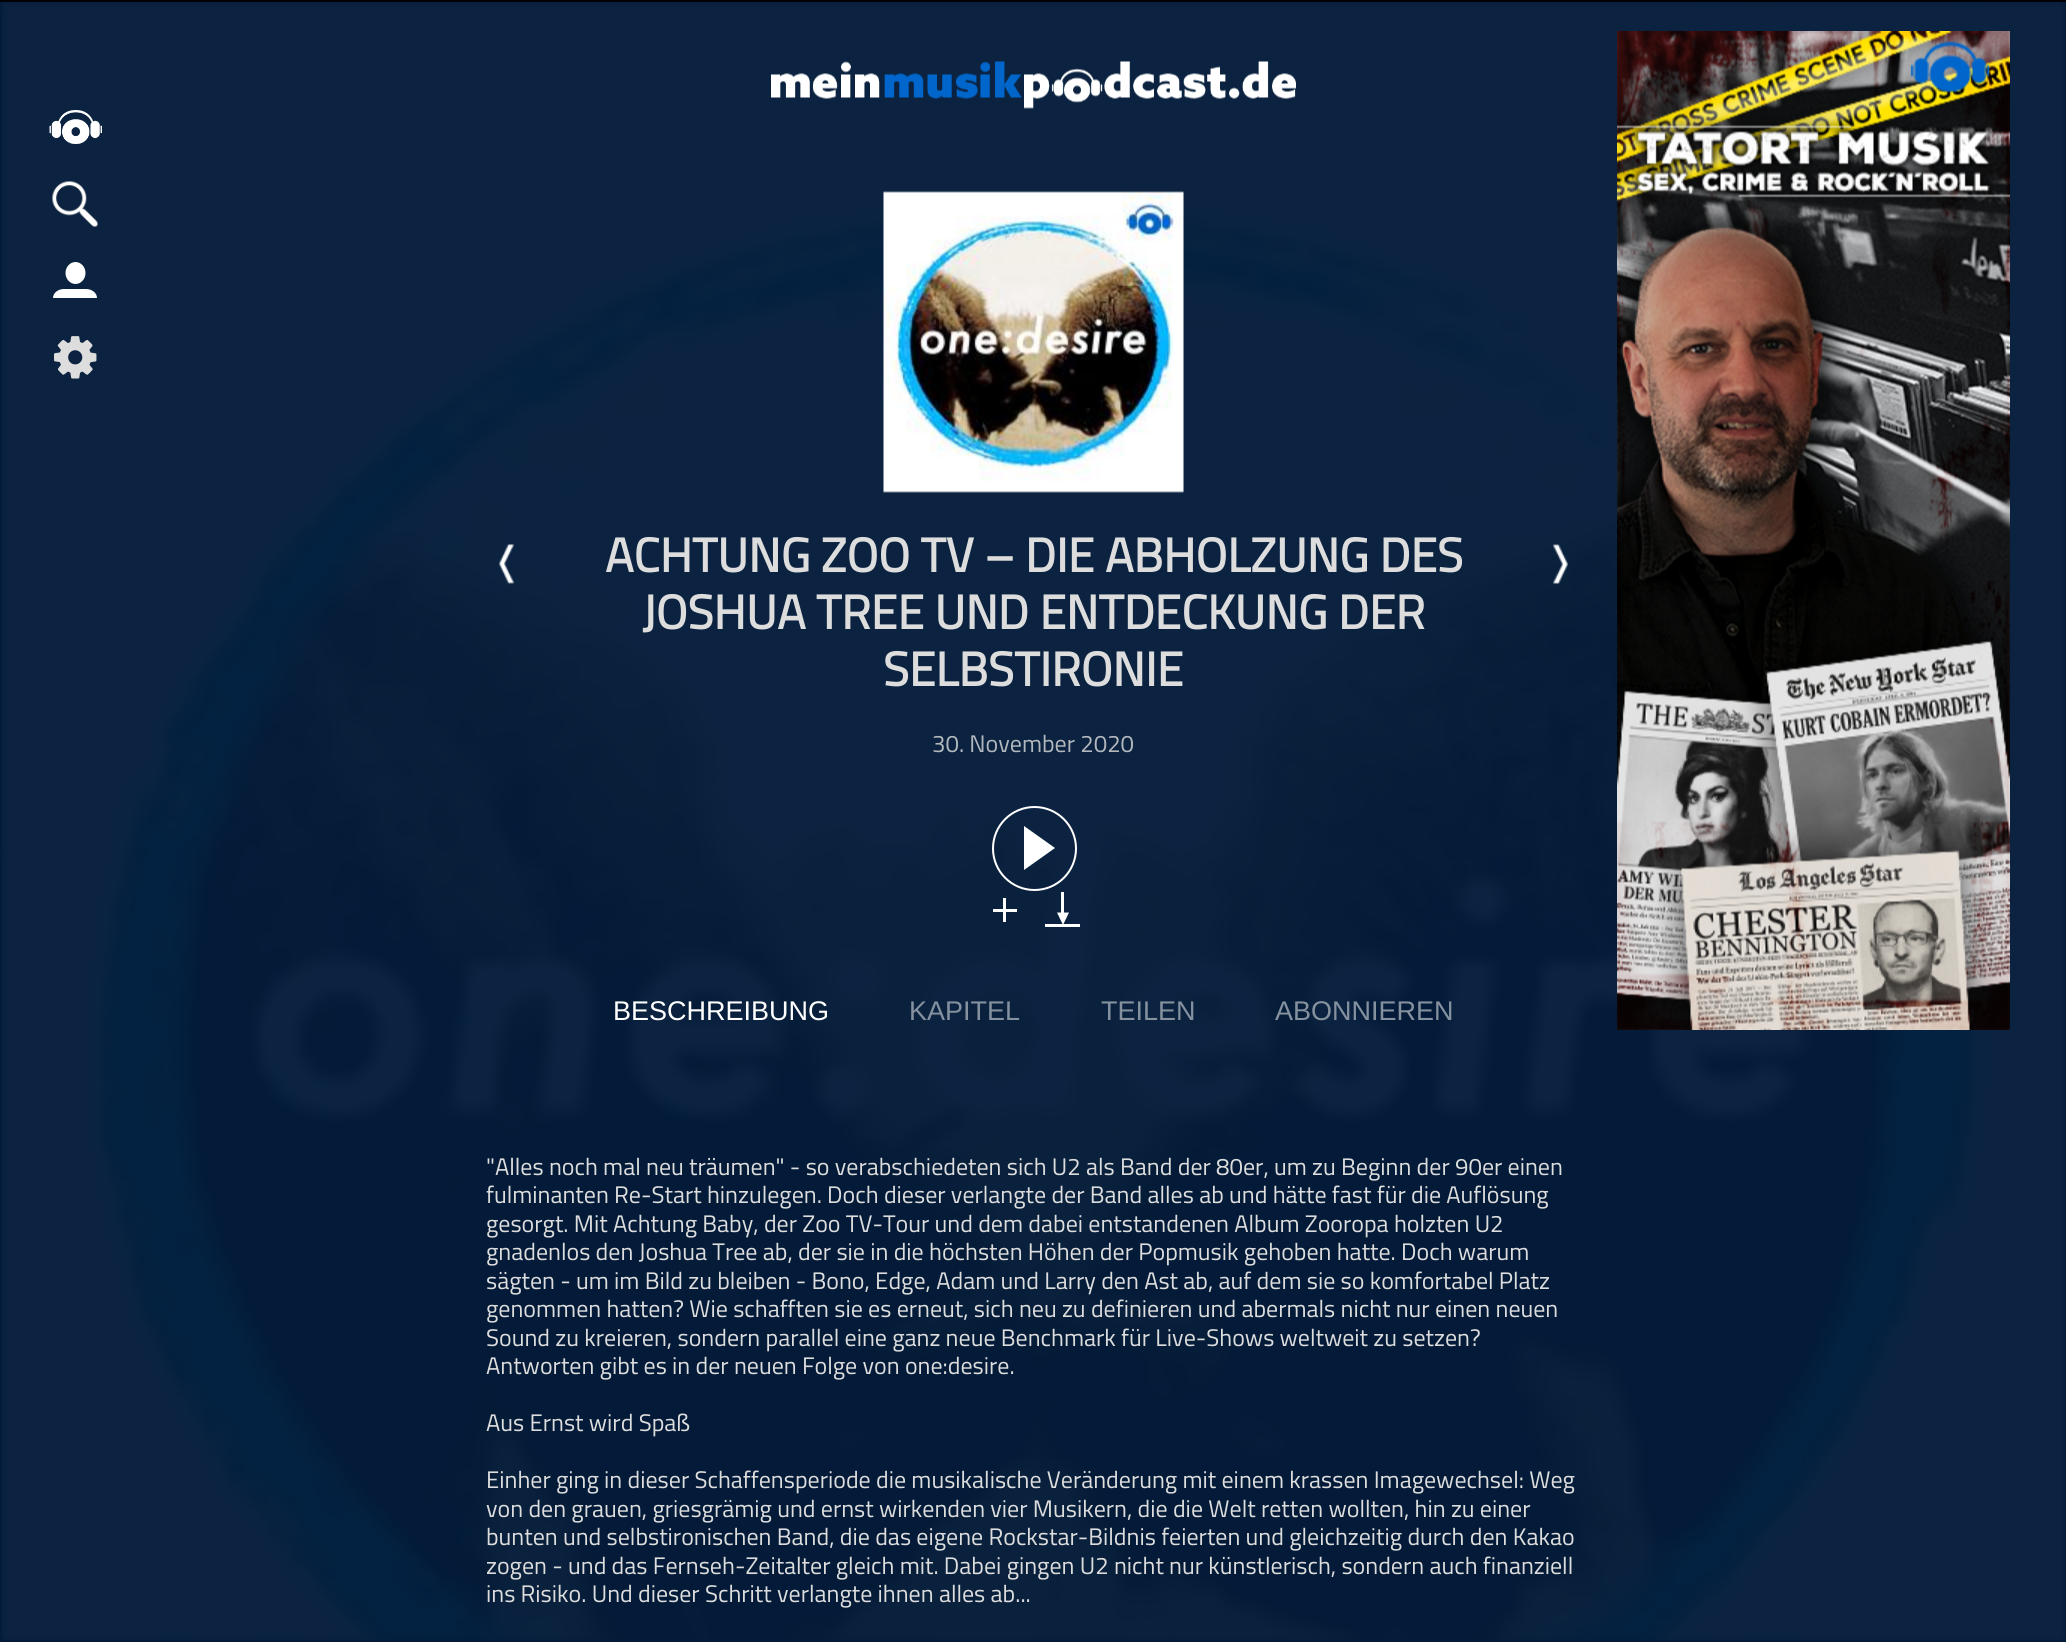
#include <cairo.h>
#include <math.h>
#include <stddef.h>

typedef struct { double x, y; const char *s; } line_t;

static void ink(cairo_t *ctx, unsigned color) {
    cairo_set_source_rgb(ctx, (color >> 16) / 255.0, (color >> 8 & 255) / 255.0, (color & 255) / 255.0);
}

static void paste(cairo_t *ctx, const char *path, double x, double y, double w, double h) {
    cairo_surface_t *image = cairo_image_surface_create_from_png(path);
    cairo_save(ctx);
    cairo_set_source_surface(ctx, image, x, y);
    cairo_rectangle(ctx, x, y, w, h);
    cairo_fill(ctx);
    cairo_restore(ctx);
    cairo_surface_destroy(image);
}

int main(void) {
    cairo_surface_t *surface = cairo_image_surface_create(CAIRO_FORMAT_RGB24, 2066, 1642);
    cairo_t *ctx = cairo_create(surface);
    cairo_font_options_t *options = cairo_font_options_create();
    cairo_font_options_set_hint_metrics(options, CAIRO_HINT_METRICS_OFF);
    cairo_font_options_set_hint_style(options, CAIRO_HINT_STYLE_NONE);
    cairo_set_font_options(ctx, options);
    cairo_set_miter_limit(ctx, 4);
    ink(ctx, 0x031C3A);
    cairo_paint(ctx);
    ink(ctx, 0x000000);
    cairo_rectangle(ctx, 0, 0, 2066, 2);
    cairo_fill(ctx);
    paste(ctx, "media/5.png", 2, 2, 2063, 1638);
    paste(ctx, "media/1.png", 771, 61, 525, 48);
    paste(ctx, "media/2.png", 49, 110, 53, 34);
    paste(ctx, "media/3.png", 52, 181, 46, 46);
    ink(ctx, 0xFFFFFF);
    cairo_new_path(ctx);
    cairo_move_to(ctx, 75.5, 262);
    cairo_curve_to(ctx, 81, 262, 85.5, 267, 85.5, 273);
    cairo_curve_to(ctx, 85.5, 279, 81, 284, 75.5, 284);
    cairo_curve_to(ctx, 70, 284, 65.5, 279, 65.5, 273);
    cairo_curve_to(ctx, 65.5, 267, 70, 262, 75.5, 262);
    cairo_close_path(ctx);
    cairo_fill(ctx);
    cairo_new_path(ctx);
    cairo_move_to(ctx, 86, 289);
    cairo_line_to(ctx, 64, 289);
    cairo_curve_to(ctx, 58, 289, 53, 293, 53, 298);
    cairo_line_to(ctx, 97, 298);
    cairo_curve_to(ctx, 97, 293, 92, 289, 86, 289);
    cairo_close_path(ctx);
    cairo_fill(ctx);
    paste(ctx, "media/4.png", 54, 336, 43, 43);
    paste(ctx, "media/6.png", 883, 191, 301, 302);
    paste(ctx, "media/7.png", 499, 544, 15, 40);
    cairo_select_font_face(ctx, "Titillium", CAIRO_FONT_SLANT_NORMAL, CAIRO_FONT_WEIGHT_BOLD);
    cairo_set_font_size(ctx, 48);
    ink(ctx, 0xDDDDDD);
    {
        static const line_t items[] = {
            {605, 572, "ACHTUNG ZOO TV – DIE ABHOLZUNG DES"},
            {642, 629, "JOSHUA TREE UND ENTDECKUNG DER"},
            {883, 686, "SELBSTIRONIE"},
        };
        for (size_t i = 0; i < sizeof items / sizeof *items; i++) {
            cairo_move_to(ctx, items[i].x, items[i].y);
            cairo_show_text(ctx, items[i].s);
        }
    }
    paste(ctx, "media/8.png", 1553, 544, 15, 40);
    cairo_select_font_face(ctx, "Titillium", CAIRO_FONT_SLANT_NORMAL, CAIRO_FONT_WEIGHT_NORMAL);
    cairo_set_font_size(ctx, 24);
    ink(ctx, 0xB3B8BE);
    cairo_move_to(ctx, 932, 752);
    cairo_show_text(ctx, "30. November 2020");
    ink(ctx, 0xFFFFFF);
    cairo_set_fill_rule(ctx, CAIRO_FILL_RULE_EVEN_ODD);
    cairo_new_path(ctx);
    cairo_move_to(ctx, 1024, 826);
    cairo_line_to(ctx, 1055, 848);
    cairo_line_to(ctx, 1024, 870);
    cairo_close_path(ctx);
    cairo_fill(ctx);
    cairo_arc(ctx, 1034.5, 848.5, 41.5, 0, 2 * M_PI);
    cairo_stroke(ctx);
    cairo_rectangle(ctx, 993, 909, 24, 3);
    cairo_fill(ctx);
    cairo_rectangle(ctx, 1003, 898, 3, 24);
    cairo_fill(ctx);
    cairo_new_path(ctx);
    cairo_move_to(ctx, 1057, 912.5);
    cairo_line_to(ctx, 1069, 912.5);
    cairo_line_to(ctx, 1063, 925);
    cairo_close_path(ctx);
    cairo_fill(ctx);
    cairo_rectangle(ctx, 1061, 892, 3, 21);
    cairo_fill(ctx);
    cairo_rectangle(ctx, 1045, 924, 35, 3);
    cairo_fill(ctx);
    cairo_select_font_face(ctx, "Liberation Sans", CAIRO_FONT_SLANT_NORMAL, CAIRO_FONT_WEIGHT_NORMAL);
    cairo_set_font_size(ctx, 27);
    cairo_move_to(ctx, 613, 1020);
    cairo_show_text(ctx, "BESCHREIBUNG");
    ink(ctx, 0x85919F);
    {
        static const line_t items[] = {
            {909, 1020, "KAPITEL"},
            {1101, 1020, "TEILEN"},
            {1275, 1020, "ABONNIEREN"},
        };
        for (size_t i = 0; i < sizeof items / sizeof *items; i++) {
            cairo_move_to(ctx, items[i].x, items[i].y);
            cairo_show_text(ctx, items[i].s);
        }
    }
    cairo_select_font_face(ctx, "Titillium", CAIRO_FONT_SLANT_NORMAL, CAIRO_FONT_WEIGHT_NORMAL);
    cairo_set_font_size(ctx, 24);
    ink(ctx, 0xDDDDDD);
    {
        static const line_t items[] = {
            {486, 1175, "\"Alles noch mal neu träumen\" - so verabschiedeten sich U2 als Band der 80er, um zu Beginn der 90er einen"},
            {486, 1203, "fulminanten Re-Start hinzulegen. Doch dieser verlangte der Band alles ab und hätte fast für die Auflösung"},
            {486, 1232, "gesorgt. Mit Achtung Baby, der Zoo TV-Tour und dem dabei entstandenen Album Zooropa holzten U2"},
            {486, 1260, "gnadenlos den Joshua Tree ab, der sie in die höchsten Höhen der Popmusik gehoben hatte. Doch warum"},
            {486, 1289, "sägten - um im Bild zu bleiben - Bono, Edge, Adam und Larry den Ast ab, auf dem sie so komfortabel Platz"},
            {486, 1317, "genommen hatten? Wie schafften sie es erneut, sich neu zu definieren und abermals nicht nur einen neuen"},
            {486, 1346, "Sound zu kreieren, sondern parallel eine ganz neue Benchmark für Live-Shows weltweit zu setzen?"},
            {486, 1374, "Antworten gibt es in der neuen Folge von one:desire."},
            {486, 1431, "Aus Ernst wird Spaß"},
            {486, 1488, "Einher ging in dieser Schaffensperiode die musikalische Veränderung mit einem krassen Imagewechsel: Weg"},
            {486, 1517, "von den grauen, griesgrämig und ernst wirkenden vier Musikern, die die Welt retten wollten, hin zu einer"},
            {486, 1545, "bunten und selbstironischen Band, die das eigene Rockstar-Bildnis feierten und gleichzeitig durch den Kakao"},
            {486, 1574, "zogen - und das Fernseh-Zeitalter gleich mit. Dabei gingen U2 nicht nur künstlerisch, sondern auch finanziell"},
            {486, 1602, "ins Risiko. Und dieser Schritt verlangte ihnen alles ab..."},
        };
        for (size_t i = 0; i < sizeof items / sizeof *items; i++) {
            cairo_move_to(ctx, items[i].x, items[i].y);
            cairo_show_text(ctx, items[i].s);
        }
    }
    paste(ctx, "media/9.png", 1617, 31, 393, 999);
    cairo_surface_write_to_png(surface, "image.png");
    cairo_font_options_destroy(options);
    cairo_destroy(ctx);
    cairo_surface_destroy(surface);
    return 0;
}
